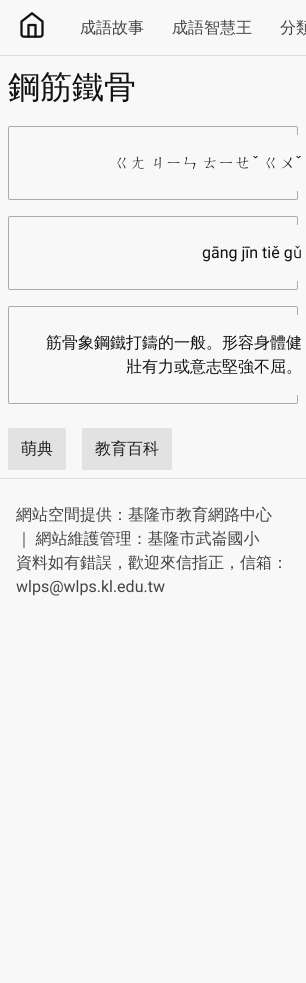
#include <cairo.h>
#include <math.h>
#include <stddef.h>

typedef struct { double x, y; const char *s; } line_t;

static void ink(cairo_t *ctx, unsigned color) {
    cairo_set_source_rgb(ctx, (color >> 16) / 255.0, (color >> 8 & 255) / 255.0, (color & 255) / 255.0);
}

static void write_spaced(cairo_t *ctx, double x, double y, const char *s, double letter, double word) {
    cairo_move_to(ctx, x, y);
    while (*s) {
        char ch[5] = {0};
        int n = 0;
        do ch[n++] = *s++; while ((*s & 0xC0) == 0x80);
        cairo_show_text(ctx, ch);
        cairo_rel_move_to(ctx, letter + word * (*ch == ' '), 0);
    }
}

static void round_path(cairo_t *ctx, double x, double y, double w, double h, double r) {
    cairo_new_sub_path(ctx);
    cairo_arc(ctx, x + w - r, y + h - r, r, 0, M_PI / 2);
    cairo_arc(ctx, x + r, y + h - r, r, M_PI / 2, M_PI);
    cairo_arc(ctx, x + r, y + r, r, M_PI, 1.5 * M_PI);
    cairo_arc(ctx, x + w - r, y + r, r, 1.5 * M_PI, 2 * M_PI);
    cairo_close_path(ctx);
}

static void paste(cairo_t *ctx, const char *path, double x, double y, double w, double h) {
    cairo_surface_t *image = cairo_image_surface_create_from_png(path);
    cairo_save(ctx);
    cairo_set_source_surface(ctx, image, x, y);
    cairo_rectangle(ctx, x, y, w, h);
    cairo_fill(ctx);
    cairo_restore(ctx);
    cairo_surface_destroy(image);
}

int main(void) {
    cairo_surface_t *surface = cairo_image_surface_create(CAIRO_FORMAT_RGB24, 306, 983);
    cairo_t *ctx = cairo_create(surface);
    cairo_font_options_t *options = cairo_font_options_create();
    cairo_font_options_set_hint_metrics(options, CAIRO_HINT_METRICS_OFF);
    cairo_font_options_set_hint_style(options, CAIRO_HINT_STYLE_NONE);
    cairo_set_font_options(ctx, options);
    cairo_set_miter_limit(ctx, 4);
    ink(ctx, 0xF8F8F8);
    cairo_paint(ctx);
    ink(ctx, 0xDDDDDD);
    cairo_rectangle(ctx, 0, 55, 306, 1);
    cairo_fill(ctx);
    paste(ctx, "media/1.png", 20, 12, 24, 26);
    cairo_select_font_face(ctx, "WenQuanYi Zen Hei Medium", CAIRO_FONT_SLANT_NORMAL, CAIRO_FONT_WEIGHT_NORMAL);
    cairo_set_font_size(ctx, 16);
    ink(ctx, 0x444444);
    {
        static const line_t items[] = {
            {80, 33, "成語故事"},
            {172, 33, "成語智慧王"},
            {280, 33, "分類"},
        };
        for (size_t i = 0; i < sizeof items / sizeof *items; i++) {
            cairo_move_to(ctx, items[i].x, items[i].y);
            cairo_show_text(ctx, items[i].s);
        }
    }
    cairo_set_font_size(ctx, 32);
    ink(ctx, 0x111111);
    cairo_move_to(ctx, 8, 98);
    cairo_show_text(ctx, "鋼筋鐵骨");
    round_path(ctx, 8.5, 126.5, 289, 73, 1.5);
    ink(ctx, 0xAAAAAA);
    cairo_set_line_width(ctx, 1);
    cairo_stroke(ctx);
    ink(ctx, 0xF8F8F8);
    cairo_rectangle(ctx, 297, 135, 1, 56);
    cairo_fill(ctx);
    cairo_set_font_size(ctx, 16);
    ink(ctx, 0x111111);
    write_spaced(ctx, 114, 168, "ㄍㄤ ㄐㄧㄣ ㄊㄧㄝ", 0, -1);
    cairo_select_font_face(ctx, "Roboto", CAIRO_FONT_SLANT_NORMAL, CAIRO_FONT_WEIGHT_NORMAL);
    cairo_move_to(ctx, 252, 168);
    cairo_show_text(ctx, "ˇ");
    cairo_select_font_face(ctx, "WenQuanYi Zen Hei Medium", CAIRO_FONT_SLANT_NORMAL, CAIRO_FONT_WEIGHT_NORMAL);
    cairo_move_to(ctx, 263, 168);
    cairo_show_text(ctx, "ㄍㄨ");
    cairo_select_font_face(ctx, "Roboto", CAIRO_FONT_SLANT_NORMAL, CAIRO_FONT_WEIGHT_NORMAL);
    cairo_move_to(ctx, 295, 168);
    cairo_show_text(ctx, "ˇ");
    round_path(ctx, 8.5, 216.5, 289, 73, 1.5);
    ink(ctx, 0xAAAAAA);
    cairo_stroke(ctx);
    ink(ctx, 0xF8F8F8);
    cairo_rectangle(ctx, 297, 225, 1, 56);
    cairo_fill(ctx);
    ink(ctx, 0x111111);
    cairo_move_to(ctx, 202, 258);
    cairo_show_text(ctx, "gāng jīn tiě g");
    cairo_select_font_face(ctx, "Ubuntu", CAIRO_FONT_SLANT_NORMAL, CAIRO_FONT_WEIGHT_NORMAL);
    cairo_move_to(ctx, 293, 258);
    cairo_show_text(ctx, "ǔ");
    round_path(ctx, 8.5, 306.5, 289, 97, 1.5);
    ink(ctx, 0xAAAAAA);
    cairo_stroke(ctx);
    ink(ctx, 0xF8F8F8);
    cairo_rectangle(ctx, 297, 315, 1, 80);
    cairo_fill(ctx);
    cairo_select_font_face(ctx, "WenQuanYi Zen Hei Medium", CAIRO_FONT_SLANT_NORMAL, CAIRO_FONT_WEIGHT_NORMAL);
    ink(ctx, 0x111111);
    cairo_move_to(ctx, 46, 348);
    cairo_show_text(ctx, "筋骨象鋼鐵打鑄的一般。形容身體健");
    cairo_move_to(ctx, 126, 372);
    cairo_show_text(ctx, "壯有力或意志堅強不屈。");
    ink(ctx, 0xE2E2E2);
    round_path(ctx, 8, 428, 58, 42, 2);
    cairo_fill(ctx);
    ink(ctx, 0x212121);
    cairo_move_to(ctx, 21, 454);
    cairo_show_text(ctx, "萌典");
    ink(ctx, 0xE2E2E2);
    round_path(ctx, 82, 428, 90, 42, 2);
    cairo_fill(ctx);
    ink(ctx, 0x212121);
    cairo_move_to(ctx, 95, 454);
    cairo_show_text(ctx, "教育百科");
    ink(ctx, 0xDDDDDD);
    cairo_rectangle(ctx, 0, 478, 306, 1);
    cairo_fill(ctx);
    ink(ctx, 0x444444);
    cairo_move_to(ctx, 16, 520);
    cairo_show_text(ctx, "網站空間提供：基隆市教育網路中心");
    write_spaced(ctx, 16, 544, "｜ 網站維護管理：基隆市武崙國小", 0, -1);
    cairo_move_to(ctx, 16, 568);
    cairo_show_text(ctx, "資料如有錯誤，歡迎來信指正，信箱：");
    cairo_select_font_face(ctx, "Roboto", CAIRO_FONT_SLANT_NORMAL, CAIRO_FONT_WEIGHT_NORMAL);
    cairo_move_to(ctx, 16, 592);
    cairo_show_text(ctx, "wlps@wlps.kl.edu.tw");
    cairo_surface_write_to_png(surface, "image.png");
    cairo_font_options_destroy(options);
    cairo_destroy(ctx);
    cairo_surface_destroy(surface);
    return 0;
}
